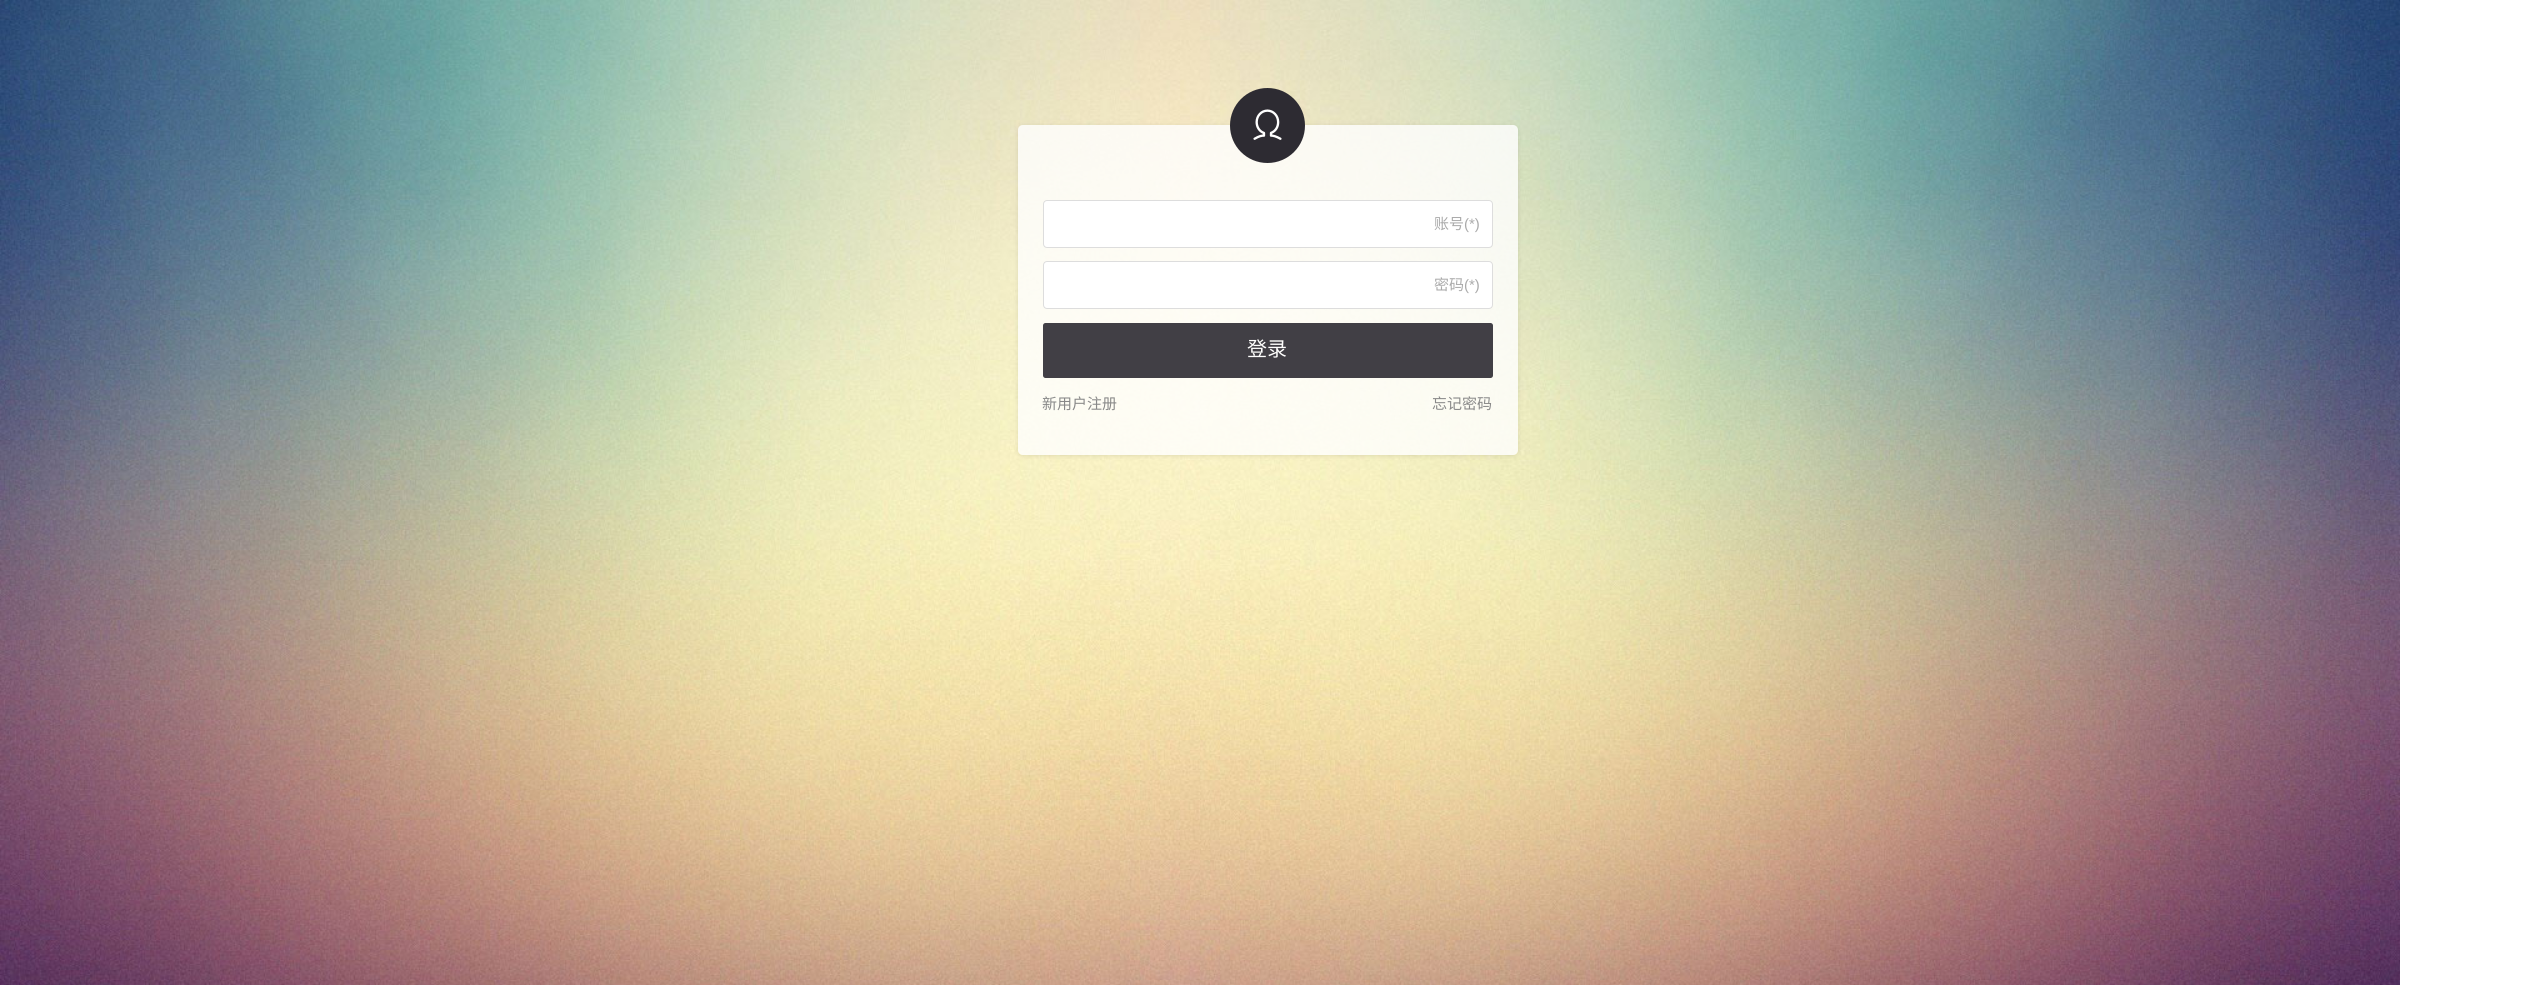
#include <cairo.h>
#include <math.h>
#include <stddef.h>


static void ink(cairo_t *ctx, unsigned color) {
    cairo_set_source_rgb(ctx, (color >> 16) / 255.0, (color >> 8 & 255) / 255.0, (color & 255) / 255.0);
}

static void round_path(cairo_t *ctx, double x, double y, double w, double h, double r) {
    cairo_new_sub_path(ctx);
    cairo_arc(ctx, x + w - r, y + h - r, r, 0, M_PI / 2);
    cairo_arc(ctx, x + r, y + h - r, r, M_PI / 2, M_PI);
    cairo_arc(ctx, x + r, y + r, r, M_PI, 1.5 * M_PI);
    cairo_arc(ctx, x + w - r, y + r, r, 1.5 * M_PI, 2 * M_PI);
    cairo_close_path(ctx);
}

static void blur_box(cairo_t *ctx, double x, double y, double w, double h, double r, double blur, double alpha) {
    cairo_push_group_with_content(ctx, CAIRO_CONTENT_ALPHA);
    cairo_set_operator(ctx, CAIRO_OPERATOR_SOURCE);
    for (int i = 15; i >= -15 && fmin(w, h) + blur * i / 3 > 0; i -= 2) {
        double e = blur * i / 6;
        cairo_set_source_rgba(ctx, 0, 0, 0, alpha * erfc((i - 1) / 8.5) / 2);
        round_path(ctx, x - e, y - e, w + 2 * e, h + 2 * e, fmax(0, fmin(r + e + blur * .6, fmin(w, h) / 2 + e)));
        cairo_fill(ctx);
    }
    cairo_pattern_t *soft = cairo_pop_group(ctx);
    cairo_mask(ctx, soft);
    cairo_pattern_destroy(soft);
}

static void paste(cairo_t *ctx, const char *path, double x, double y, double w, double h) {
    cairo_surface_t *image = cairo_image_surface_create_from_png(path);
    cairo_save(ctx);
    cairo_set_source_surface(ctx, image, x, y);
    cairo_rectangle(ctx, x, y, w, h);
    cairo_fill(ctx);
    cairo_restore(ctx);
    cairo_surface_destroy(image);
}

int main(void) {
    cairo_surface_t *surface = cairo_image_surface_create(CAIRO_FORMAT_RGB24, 2533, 985);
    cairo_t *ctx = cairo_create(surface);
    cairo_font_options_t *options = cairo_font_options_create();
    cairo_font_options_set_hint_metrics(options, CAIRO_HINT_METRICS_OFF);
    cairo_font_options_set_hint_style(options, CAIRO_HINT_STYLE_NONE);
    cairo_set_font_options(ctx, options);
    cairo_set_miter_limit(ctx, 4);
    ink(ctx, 0xFFFFFF);
    cairo_paint(ctx);
    paste(ctx, "media/1.png", 0, 0, 2400, 985);
    cairo_save(ctx);
    cairo_set_fill_rule(ctx, CAIRO_FILL_RULE_EVEN_ODD);
    cairo_new_path(ctx);
    cairo_move_to(ctx, 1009, 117);
    cairo_line_to(ctx, 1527, 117);
    cairo_line_to(ctx, 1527, 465);
    cairo_line_to(ctx, 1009, 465);
    cairo_close_path(ctx);
    cairo_move_to(ctx, 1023, 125);
    cairo_line_to(ctx, 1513, 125);
    cairo_curve_to(ctx, 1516, 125, 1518, 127, 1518, 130);
    cairo_line_to(ctx, 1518, 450);
    cairo_curve_to(ctx, 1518, 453, 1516, 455, 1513, 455);
    cairo_line_to(ctx, 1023, 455);
    cairo_curve_to(ctx, 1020, 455, 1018, 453, 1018, 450);
    cairo_line_to(ctx, 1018, 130);
    cairo_curve_to(ctx, 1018, 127, 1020, 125, 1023, 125);
    cairo_close_path(ctx);
    cairo_clip(ctx);
    ink(ctx, 0x000000);
    blur_box(ctx, 1018, 126, 500, 330, 5, 2.5, 0.1);
    cairo_restore(ctx);
    cairo_set_source_rgba(ctx, 1, 1, 1, 0.8);
    round_path(ctx, 1018, 125, 500, 330, 5);
    cairo_fill(ctx);
    ink(ctx, 0x2D2B32);
    cairo_arc(ctx, 1267.5, 125.5, 37.5, 0, 2 * M_PI);
    cairo_fill(ctx);
    paste(ctx, "media/2.png", 1253, 109, 29, 31);
    ink(ctx, 0xFFFFFF);
    round_path(ctx, 1043.5, 200.5, 449, 47, 3.5);
    cairo_fill_preserve(ctx);
    ink(ctx, 0xDDDDDD);
    cairo_set_line_width(ctx, 1);
    cairo_stroke(ctx);
    cairo_select_font_face(ctx, "Noto Sans CJK SC", CAIRO_FONT_SLANT_NORMAL, CAIRO_FONT_WEIGHT_NORMAL);
    cairo_set_font_size(ctx, 15);
    ink(ctx, 0xAAAAAA);
    cairo_move_to(ctx, 1434, 229);
    cairo_show_text(ctx, "账号");
    cairo_select_font_face(ctx, "Liberation Sans", CAIRO_FONT_SLANT_NORMAL, CAIRO_FONT_WEIGHT_NORMAL);
    cairo_move_to(ctx, 1464, 229);
    cairo_show_text(ctx, "(*)");
    ink(ctx, 0xFFFFFF);
    round_path(ctx, 1043.5, 261.5, 449, 47, 3.5);
    cairo_fill_preserve(ctx);
    ink(ctx, 0xDDDDDD);
    cairo_stroke(ctx);
    cairo_select_font_face(ctx, "Noto Sans CJK SC", CAIRO_FONT_SLANT_NORMAL, CAIRO_FONT_WEIGHT_NORMAL);
    ink(ctx, 0xAAAAAA);
    cairo_move_to(ctx, 1434, 290);
    cairo_show_text(ctx, "密码");
    cairo_select_font_face(ctx, "Liberation Sans", CAIRO_FONT_SLANT_NORMAL, CAIRO_FONT_WEIGHT_NORMAL);
    cairo_move_to(ctx, 1464, 290);
    cairo_show_text(ctx, "(*)");
    cairo_set_source_rgba(ctx, 0.176, 0.169, 0.196, 0.9);
    round_path(ctx, 1043, 323, 450, 55, 2.5);
    cairo_fill(ctx);
    cairo_select_font_face(ctx, "Noto Sans CJK SC", CAIRO_FONT_SLANT_NORMAL, CAIRO_FONT_WEIGHT_NORMAL);
    cairo_set_font_size(ctx, 20);
    ink(ctx, 0xFFFFFE);
    cairo_move_to(ctx, 1247, 356);
    cairo_show_text(ctx, "登录");
    cairo_set_font_size(ctx, 15);
    ink(ctx, 0x888888);
    cairo_move_to(ctx, 1042, 409);
    cairo_show_text(ctx, "新用户注册");
    cairo_move_to(ctx, 1432, 409);
    cairo_show_text(ctx, "忘记密码");
    cairo_surface_write_to_png(surface, "image.png");
    cairo_font_options_destroy(options);
    cairo_destroy(ctx);
    cairo_surface_destroy(surface);
    return 0;
}
